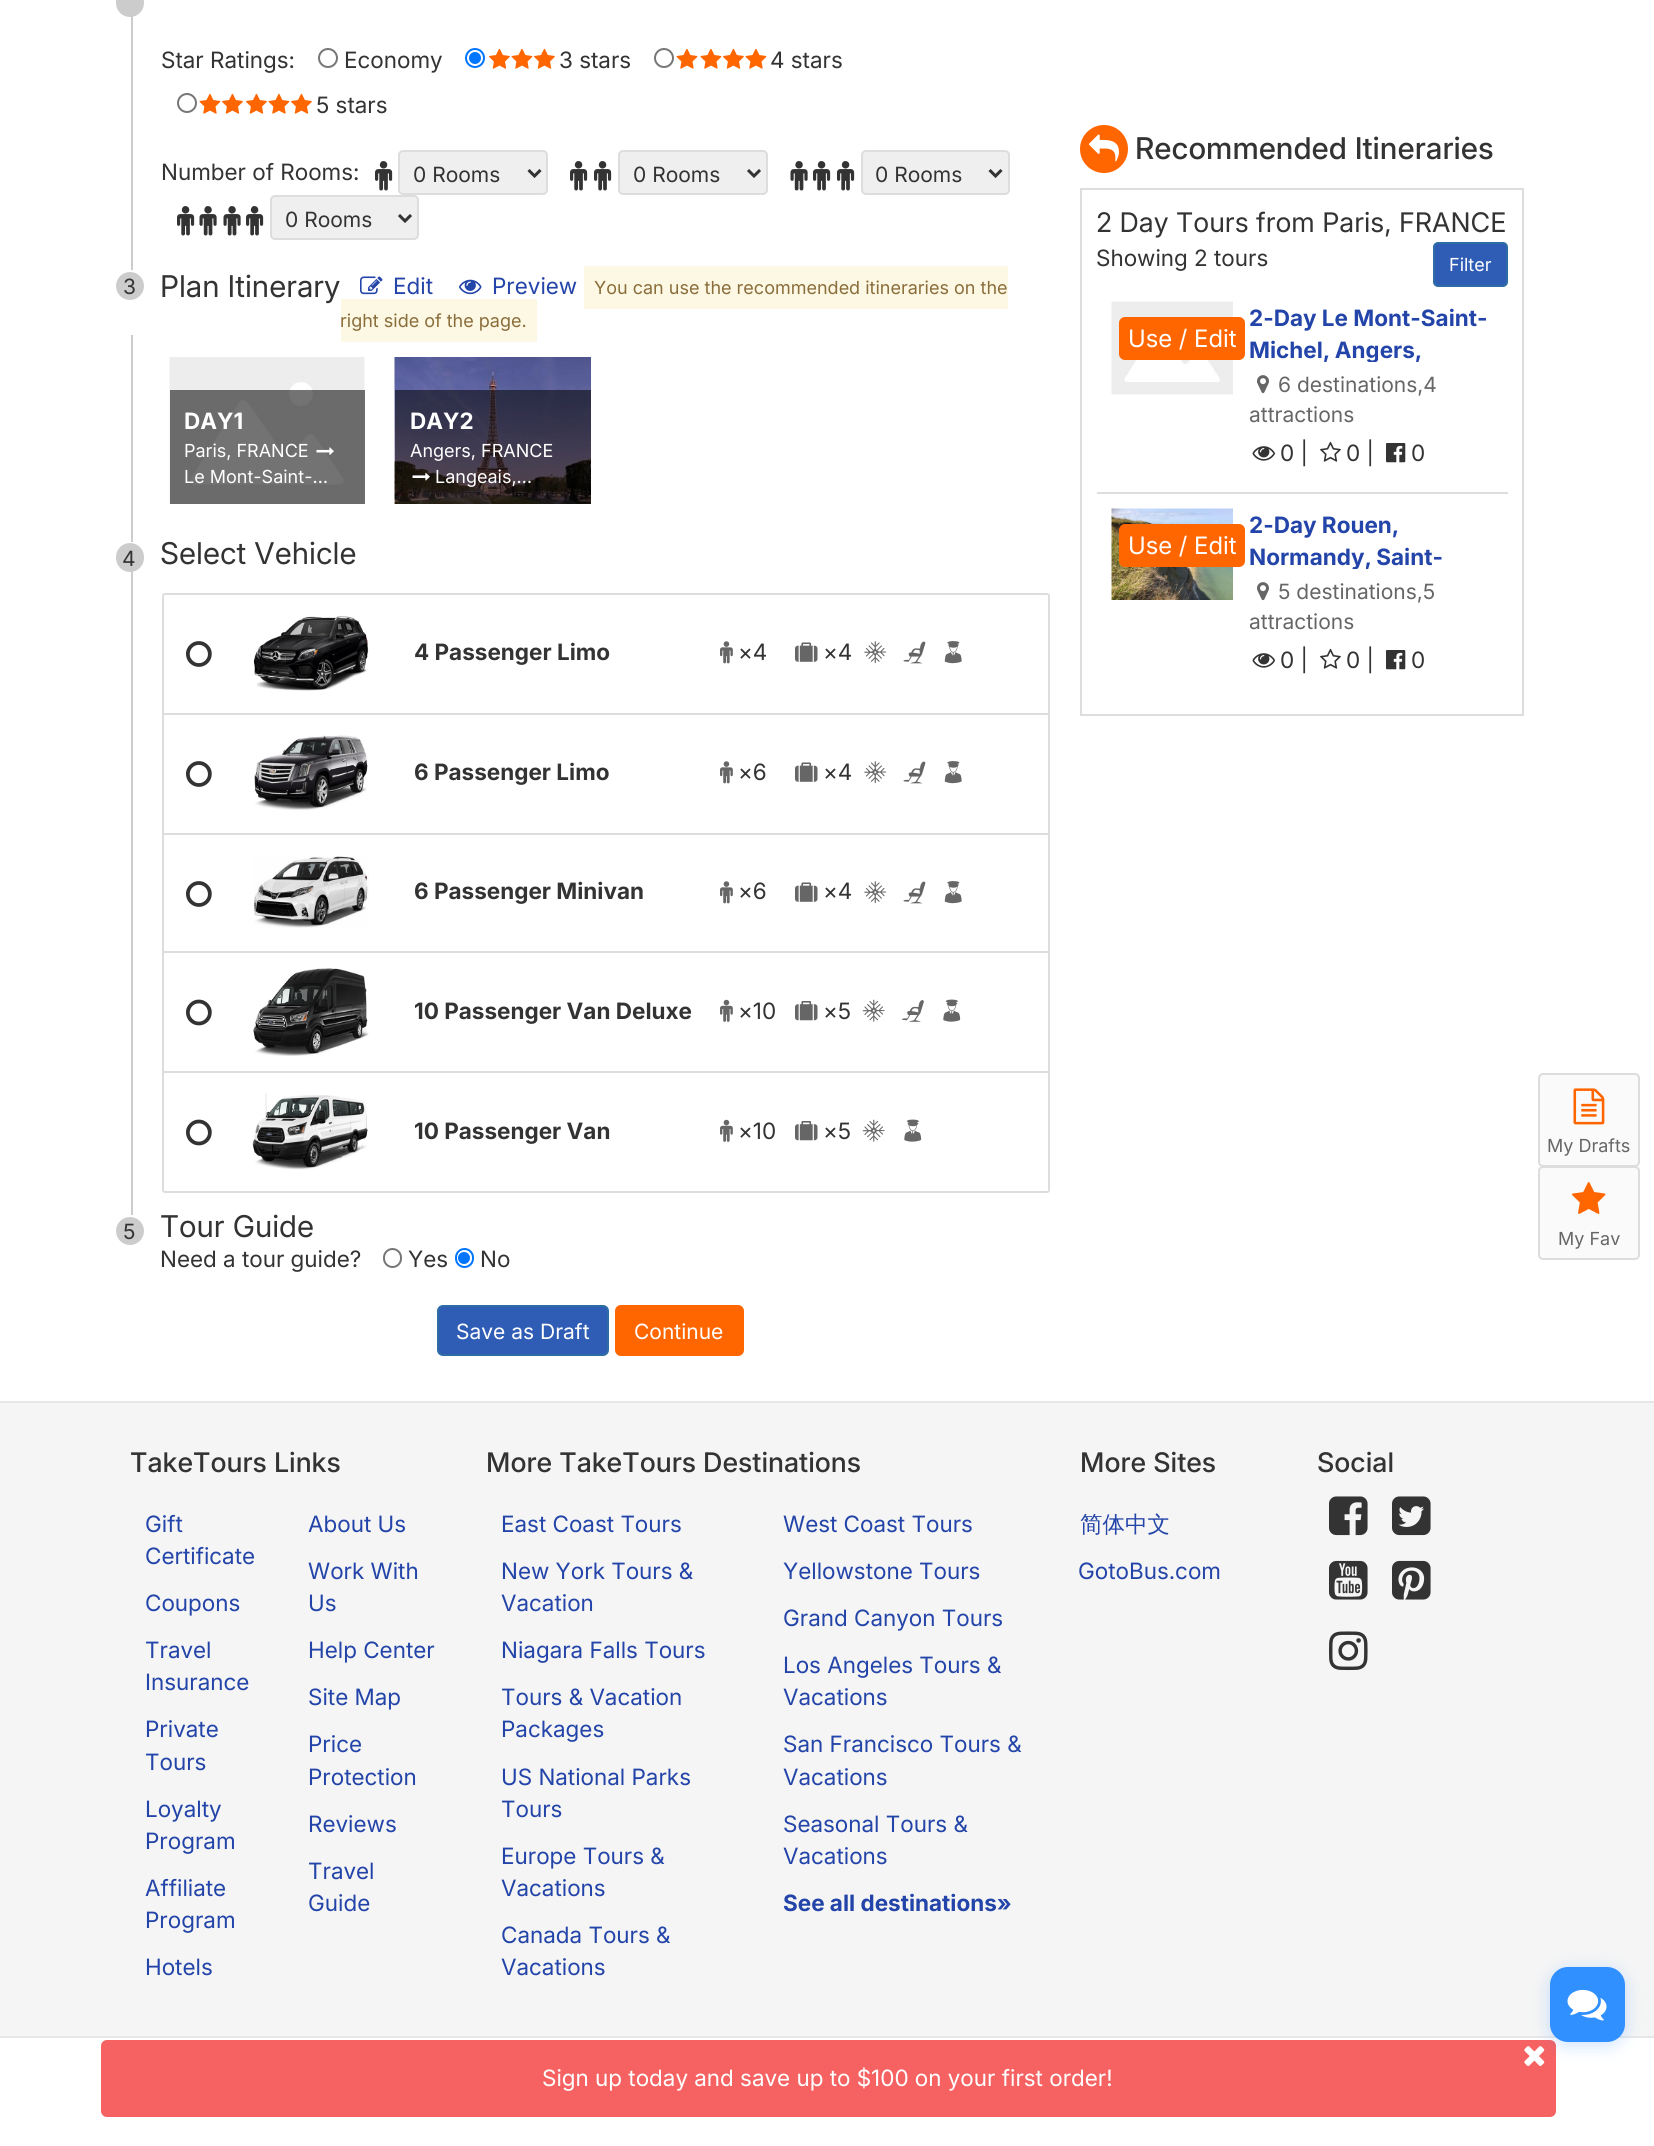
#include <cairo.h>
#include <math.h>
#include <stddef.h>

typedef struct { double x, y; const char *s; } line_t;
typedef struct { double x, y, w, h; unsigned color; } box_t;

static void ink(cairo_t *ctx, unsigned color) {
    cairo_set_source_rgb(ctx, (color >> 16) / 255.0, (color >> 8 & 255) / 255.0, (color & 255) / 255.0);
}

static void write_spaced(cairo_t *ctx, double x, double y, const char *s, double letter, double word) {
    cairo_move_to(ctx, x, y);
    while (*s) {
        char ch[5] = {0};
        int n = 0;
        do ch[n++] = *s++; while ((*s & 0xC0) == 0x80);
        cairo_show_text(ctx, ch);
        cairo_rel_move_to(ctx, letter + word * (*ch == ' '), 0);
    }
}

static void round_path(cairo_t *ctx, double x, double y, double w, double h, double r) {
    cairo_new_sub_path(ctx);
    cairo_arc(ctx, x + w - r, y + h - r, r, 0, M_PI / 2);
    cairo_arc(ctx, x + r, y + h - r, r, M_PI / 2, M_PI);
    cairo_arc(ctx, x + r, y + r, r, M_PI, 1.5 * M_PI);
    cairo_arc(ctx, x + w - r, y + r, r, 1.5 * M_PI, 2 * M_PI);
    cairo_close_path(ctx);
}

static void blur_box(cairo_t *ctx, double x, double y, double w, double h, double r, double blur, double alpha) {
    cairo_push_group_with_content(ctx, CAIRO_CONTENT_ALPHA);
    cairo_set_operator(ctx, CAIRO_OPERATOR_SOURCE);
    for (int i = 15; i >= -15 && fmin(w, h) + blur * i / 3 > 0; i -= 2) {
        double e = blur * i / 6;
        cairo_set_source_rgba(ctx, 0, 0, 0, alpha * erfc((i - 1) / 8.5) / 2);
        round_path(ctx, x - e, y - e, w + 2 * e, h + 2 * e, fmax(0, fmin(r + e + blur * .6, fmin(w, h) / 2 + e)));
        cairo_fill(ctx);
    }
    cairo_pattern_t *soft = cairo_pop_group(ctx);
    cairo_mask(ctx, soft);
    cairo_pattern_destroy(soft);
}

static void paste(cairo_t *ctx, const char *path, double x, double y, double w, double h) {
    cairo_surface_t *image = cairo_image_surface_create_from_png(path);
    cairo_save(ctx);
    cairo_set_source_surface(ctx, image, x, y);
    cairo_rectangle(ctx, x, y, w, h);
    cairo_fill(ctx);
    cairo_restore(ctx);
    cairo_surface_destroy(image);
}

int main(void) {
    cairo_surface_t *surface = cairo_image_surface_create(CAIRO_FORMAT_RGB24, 1654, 2146);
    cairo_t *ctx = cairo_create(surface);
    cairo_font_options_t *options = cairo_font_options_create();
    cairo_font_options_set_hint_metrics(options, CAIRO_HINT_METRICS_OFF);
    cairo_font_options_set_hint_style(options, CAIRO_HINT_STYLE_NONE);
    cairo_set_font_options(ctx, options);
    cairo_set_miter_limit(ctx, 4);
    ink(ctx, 0xFFFFFF);
    cairo_paint(ctx);
    ink(ctx, 0xCCCCCC);
    round_path(ctx, 116, -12, 28, 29, 14);
    cairo_fill(ctx);
    cairo_rectangle(ctx, 131, 15, 2, 255);
    cairo_fill(ctx);
    cairo_select_font_face(ctx, "Inter", CAIRO_FONT_SLANT_NORMAL, CAIRO_FONT_WEIGHT_NORMAL);
    cairo_set_font_size(ctx, 22.5);
    ink(ctx, 0x333333);
    cairo_move_to(ctx, 161, 68);
    cairo_show_text(ctx, "Star Ratings:");
    cairo_new_path(ctx);
    cairo_arc(ctx, 328, 58, 9, 0, 2 * M_PI);
    ink(ctx, 0x767676);
    cairo_stroke(ctx);
    ink(ctx, 0x333333);
    cairo_move_to(ctx, 344, 68);
    cairo_show_text(ctx, "Economy");
    cairo_new_path(ctx);
    cairo_arc(ctx, 475, 58, 9, 0, 2 * M_PI);
    ink(ctx, 0x0075FF);
    cairo_stroke(ctx);
    cairo_arc(ctx, 475, 58, 6, 0, 2 * M_PI);
    cairo_fill(ctx);
    paste(ctx, "media/1.png", 489, 48, 21, 21);
    paste(ctx, "media/2.png", 511, 48, 22, 21);
    paste(ctx, "media/1.png", 534, 48, 21, 21);
    ink(ctx, 0x333333);
    cairo_move_to(ctx, 559, 68);
    cairo_show_text(ctx, "3 stars");
    cairo_new_path(ctx);
    cairo_arc(ctx, 664, 58, 9, 0, 2 * M_PI);
    ink(ctx, 0x767676);
    cairo_stroke(ctx);
    paste(ctx, "media/2.png", 676, 48, 22, 21);
    paste(ctx, "media/2.png", 700, 48, 22, 21);
    paste(ctx, "media/1.png", 723, 48, 21, 21);
    paste(ctx, "media/2.png", 745, 48, 22, 21);
    ink(ctx, 0x333333);
    cairo_move_to(ctx, 770, 68);
    cairo_show_text(ctx, "4 stars");
    cairo_new_path(ctx);
    cairo_arc(ctx, 187, 103, 9, 0, 2 * M_PI);
    ink(ctx, 0x767676);
    cairo_stroke(ctx);
    paste(ctx, "media/2.png", 199, 93, 22, 21);
    paste(ctx, "media/1.png", 222, 93, 21, 21);
    paste(ctx, "media/1.png", 246, 93, 21, 21);
    paste(ctx, "media/2.png", 268, 93, 22, 21);
    paste(ctx, "media/1.png", 291, 93, 21, 21);
    ink(ctx, 0x333333);
    cairo_move_to(ctx, 316, 113);
    cairo_show_text(ctx, "5 stars");
    cairo_move_to(ctx, 161, 180);
    cairo_show_text(ctx, "Number of Rooms:");
    paste(ctx, "media/3.png", 375, 161, 18, 30);
    ink(ctx, 0xEFEFEF);
    round_path(ctx, 399, 151, 148, 43, 4);
    cairo_fill_preserve(ctx);
    ink(ctx, 0xDDDDDD);
    cairo_stroke(ctx);
    cairo_new_path(ctx);
    cairo_move_to(ctx, 528.5, 170);
    cairo_line_to(ctx, 534.5, 176);
    cairo_line_to(ctx, 540.5, 170);
    ink(ctx, 0x333333);
    cairo_set_line_width(ctx, 3);
    cairo_stroke(ctx);
    cairo_select_font_face(ctx, "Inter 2", CAIRO_FONT_SLANT_NORMAL, CAIRO_FONT_WEIGHT_NORMAL);
    cairo_set_font_size(ctx, 21);
    cairo_move_to(ctx, 413, 182);
    cairo_show_text(ctx, "0 Rooms");
    paste(ctx, "media/3.png", 570, 161, 18, 30);
    paste(ctx, "media/3.png", 594, 161, 18, 30);
    ink(ctx, 0xEFEFEF);
    round_path(ctx, 619, 151, 148, 43, 4);
    cairo_fill_preserve(ctx);
    ink(ctx, 0xDDDDDD);
    cairo_set_line_width(ctx, 2);
    cairo_stroke(ctx);
    cairo_new_path(ctx);
    cairo_move_to(ctx, 748, 170);
    cairo_line_to(ctx, 754, 176);
    cairo_line_to(ctx, 760, 170);
    ink(ctx, 0x333333);
    cairo_set_line_width(ctx, 3);
    cairo_stroke(ctx);
    cairo_move_to(ctx, 633, 182);
    cairo_show_text(ctx, "0 Rooms");
    paste(ctx, "media/4.png", 790, 161, 18, 30);
    paste(ctx, "media/3.png", 813, 161, 18, 30);
    paste(ctx, "media/3.png", 837, 161, 18, 30);
    ink(ctx, 0xEFEFEF);
    round_path(ctx, 862, 151, 147, 43, 4);
    cairo_fill_preserve(ctx);
    ink(ctx, 0xDDDDDD);
    cairo_set_line_width(ctx, 2);
    cairo_stroke(ctx);
    cairo_new_path(ctx);
    cairo_move_to(ctx, 989.5, 170);
    cairo_line_to(ctx, 995.5, 176);
    cairo_line_to(ctx, 1001.5, 170);
    ink(ctx, 0x333333);
    cairo_set_line_width(ctx, 3);
    cairo_stroke(ctx);
    cairo_move_to(ctx, 875, 182);
    cairo_show_text(ctx, "0 Rooms");
    paste(ctx, "media/3.png", 177, 206, 18, 30);
    paste(ctx, "media/4.png", 199, 206, 18, 30);
    paste(ctx, "media/4.png", 223, 206, 18, 30);
    paste(ctx, "media/3.png", 246, 206, 18, 30);
    ink(ctx, 0xEFEFEF);
    round_path(ctx, 271, 196, 147, 43, 4);
    cairo_fill_preserve(ctx);
    ink(ctx, 0xDDDDDD);
    cairo_set_line_width(ctx, 2);
    cairo_stroke(ctx);
    cairo_new_path(ctx);
    cairo_move_to(ctx, 399, 215);
    cairo_line_to(ctx, 405, 221);
    cairo_line_to(ctx, 411, 215);
    ink(ctx, 0x333333);
    cairo_set_line_width(ctx, 3);
    cairo_stroke(ctx);
    cairo_move_to(ctx, 285, 227);
    cairo_show_text(ctx, "0 Rooms");
    ink(ctx, 0xCCCCCC);
    cairo_new_path(ctx);
    cairo_arc(ctx, 130, 286, 14, 0, 2 * M_PI);
    cairo_fill(ctx);
    ink(ctx, 0x333333);
    cairo_move_to(ctx, 123, 294);
    cairo_show_text(ctx, "3");
    cairo_select_font_face(ctx, "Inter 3", CAIRO_FONT_SLANT_NORMAL, CAIRO_FONT_WEIGHT_NORMAL);
    cairo_set_font_size(ctx, 30);
    cairo_move_to(ctx, 160, 297);
    cairo_show_text(ctx, "Plan Itinerary");
    paste(ctx, "media/5.png", 360, 276, 23, 19);
    cairo_select_font_face(ctx, "Inter", CAIRO_FONT_SLANT_NORMAL, CAIRO_FONT_WEIGHT_NORMAL);
    cairo_set_font_size(ctx, 22.5);
    ink(ctx, 0x2344A8);
    cairo_move_to(ctx, 393, 294);
    cairo_show_text(ctx, "Edit");
    paste(ctx, "media/6.png", 459, 279, 23, 16);
    cairo_move_to(ctx, 492, 294);
    cairo_show_text(ctx, "Preview");
    ink(ctx, 0xFCF8E3);
    cairo_rectangle(ctx, 584, 266, 424, 43);
    cairo_fill(ctx);
    cairo_select_font_face(ctx, "Inter 2", CAIRO_FONT_SLANT_NORMAL, CAIRO_FONT_WEIGHT_NORMAL);
    cairo_set_font_size(ctx, 18);
    ink(ctx, 0x8A6D3B);
    cairo_move_to(ctx, 594, 294);
    cairo_show_text(ctx, "You can use the recommended itineraries on the");
    ink(ctx, 0xFCF8E3);
    cairo_rectangle(ctx, 341, 299, 196, 43);
    cairo_fill(ctx);
    ink(ctx, 0x8A6D3B);
    cairo_move_to(ctx, 340, 327);
    cairo_show_text(ctx, "right side of the page.");
    ink(ctx, 0xCCCCCC);
    cairo_rectangle(ctx, 131, 335, 2, 207);
    cairo_fill(ctx);
    paste(ctx, "media/7.png", 169, 357, 196, 147);
    cairo_set_source_rgba(ctx, 0, 0, 0, 0.55);
    cairo_rectangle(ctx, 170, 390, 195, 114);
    cairo_fill(ctx);
    cairo_select_font_face(ctx, "Inter", CAIRO_FONT_SLANT_NORMAL, CAIRO_FONT_WEIGHT_BOLD);
    cairo_set_font_size(ctx, 22.5);
    ink(ctx, 0xFFFFFF);
    cairo_move_to(ctx, 184, 429);
    cairo_show_text(ctx, "DAY1");
    cairo_select_font_face(ctx, "Inter 2", CAIRO_FONT_SLANT_NORMAL, CAIRO_FONT_WEIGHT_NORMAL);
    cairo_set_font_size(ctx, 18);
    cairo_move_to(ctx, 184, 457);
    cairo_show_text(ctx, "Paris, FRANCE");
    paste(ctx, "media/8.png", 316, 447, 18, 8);
    cairo_move_to(ctx, 184, 483);
    cairo_show_text(ctx, "Le Mont-Saint-…");
    paste(ctx, "media/9.png", 394, 357, 197, 147);
    cairo_set_source_rgba(ctx, 0, 0, 0, 0.55);
    cairo_rectangle(ctx, 395, 390, 196, 114);
    cairo_fill(ctx);
    cairo_select_font_face(ctx, "Inter", CAIRO_FONT_SLANT_NORMAL, CAIRO_FONT_WEIGHT_BOLD);
    cairo_set_font_size(ctx, 22.5);
    ink(ctx, 0xFFFFFF);
    cairo_move_to(ctx, 410, 429);
    cairo_show_text(ctx, "DAY2");
    cairo_select_font_face(ctx, "Inter 2", CAIRO_FONT_SLANT_NORMAL, CAIRO_FONT_WEIGHT_NORMAL);
    cairo_set_font_size(ctx, 18);
    cairo_move_to(ctx, 410, 457);
    cairo_show_text(ctx, "Angers, FRANCE");
    paste(ctx, "media/10.png", 412, 472, 18, 9);
    cairo_move_to(ctx, 435, 483);
    cairo_show_text(ctx, "Langeais,…");
    ink(ctx, 0xCCCCCC);
    cairo_rectangle(ctx, 131, 570, 2, 645);
    cairo_fill(ctx);
    round_path(ctx, 116, 543, 28, 29, 14);
    cairo_fill(ctx);
    cairo_set_font_size(ctx, 21);
    ink(ctx, 0x333333);
    cairo_move_to(ctx, 122, 566);
    cairo_show_text(ctx, "4");
    cairo_select_font_face(ctx, "Inter 3", CAIRO_FONT_SLANT_NORMAL, CAIRO_FONT_WEIGHT_NORMAL);
    cairo_set_font_size(ctx, 30);
    cairo_move_to(ctx, 160, 564);
    cairo_show_text(ctx, "Select Vehicle");
    round_path(ctx, 163, 594, 886, 598, 2);
    ink(ctx, 0xDDDDDD);
    cairo_set_line_width(ctx, 2);
    cairo_stroke(ctx);
    cairo_rectangle(ctx, 164, 713, 885, 2);
    cairo_fill(ctx);
    paste(ctx, "media/11.png", 186, 641, 26, 26);
    paste(ctx, "media/12.png", 253, 616, 116, 75);
    cairo_select_font_face(ctx, "Inter", CAIRO_FONT_SLANT_NORMAL, CAIRO_FONT_WEIGHT_BOLD);
    cairo_set_font_size(ctx, 22.5);
    ink(ctx, 0x333333);
    cairo_move_to(ctx, 414, 660);
    cairo_show_text(ctx, "4 Passenger Limo");
    paste(ctx, "media/13.png", 720, 641, 13, 23);
    cairo_select_font_face(ctx, "Inter", CAIRO_FONT_SLANT_NORMAL, CAIRO_FONT_WEIGHT_NORMAL);
    cairo_move_to(ctx, 738, 660);
    cairo_show_text(ctx, "×4");
    paste(ctx, "media/14.png", 795, 642, 23, 20);
    cairo_move_to(ctx, 823, 660);
    cairo_show_text(ctx, "×4");
    paste(ctx, "media/15.png", 864, 641, 23, 23);
    paste(ctx, "media/16.png", 903, 641, 23, 23);
    paste(ctx, "media/17.png", 944, 641, 18, 23);
    ink(ctx, 0xDDDDDD);
    cairo_rectangle(ctx, 164, 833, 885, 2);
    cairo_fill(ctx);
    paste(ctx, "media/11.png", 186, 761, 26, 26);
    paste(ctx, "media/18.png", 254, 735, 114, 75);
    cairo_select_font_face(ctx, "Inter", CAIRO_FONT_SLANT_NORMAL, CAIRO_FONT_WEIGHT_BOLD);
    ink(ctx, 0x333333);
    cairo_move_to(ctx, 414, 780);
    cairo_show_text(ctx, "6 Passenger Limo");
    paste(ctx, "media/13.png", 720, 761, 13, 23);
    cairo_select_font_face(ctx, "Inter", CAIRO_FONT_SLANT_NORMAL, CAIRO_FONT_WEIGHT_NORMAL);
    cairo_move_to(ctx, 738, 780);
    cairo_show_text(ctx, "×6");
    paste(ctx, "media/14.png", 795, 762, 23, 20);
    cairo_move_to(ctx, 823, 780);
    cairo_show_text(ctx, "×4");
    paste(ctx, "media/15.png", 864, 761, 23, 23);
    paste(ctx, "media/16.png", 903, 761, 23, 23);
    paste(ctx, "media/17.png", 944, 761, 18, 23);
    ink(ctx, 0xDDDDDD);
    cairo_rectangle(ctx, 164, 951, 885, 2);
    cairo_fill(ctx);
    paste(ctx, "media/11.png", 186, 881, 26, 26);
    paste(ctx, "media/19.png", 254, 856, 115, 72);
    cairo_select_font_face(ctx, "Inter", CAIRO_FONT_SLANT_NORMAL, CAIRO_FONT_WEIGHT_BOLD);
    ink(ctx, 0x333333);
    cairo_move_to(ctx, 414, 899);
    cairo_show_text(ctx, "6 Passenger Minivan");
    paste(ctx, "media/13.png", 720, 881, 13, 23);
    cairo_select_font_face(ctx, "Inter", CAIRO_FONT_SLANT_NORMAL, CAIRO_FONT_WEIGHT_NORMAL);
    cairo_move_to(ctx, 738, 899);
    cairo_show_text(ctx, "×6");
    paste(ctx, "media/14.png", 795, 882, 23, 20);
    cairo_move_to(ctx, 823, 899);
    cairo_show_text(ctx, "×4");
    paste(ctx, "media/15.png", 864, 881, 23, 23);
    paste(ctx, "media/16.png", 903, 881, 23, 23);
    paste(ctx, "media/17.png", 944, 881, 18, 23);
    ink(ctx, 0xDDDDDD);
    cairo_rectangle(ctx, 164, 1071, 885, 2);
    cairo_fill(ctx);
    paste(ctx, "media/20.png", 186, 999, 26, 27);
    paste(ctx, "media/21.png", 253, 968, 116, 88);
    cairo_select_font_face(ctx, "Inter", CAIRO_FONT_SLANT_NORMAL, CAIRO_FONT_WEIGHT_BOLD);
    ink(ctx, 0x333333);
    cairo_move_to(ctx, 414, 1019);
    cairo_show_text(ctx, "10 Passenger Van Deluxe");
    paste(ctx, "media/22.png", 720, 999, 13, 23);
    cairo_select_font_face(ctx, "Inter", CAIRO_FONT_SLANT_NORMAL, CAIRO_FONT_WEIGHT_NORMAL);
    cairo_move_to(ctx, 738, 1019);
    cairo_show_text(ctx, "×10");
    paste(ctx, "media/23.png", 795, 1001, 23, 20);
    cairo_move_to(ctx, 823, 1019);
    cairo_show_text(ctx, "×5");
    paste(ctx, "media/24.png", 862, 999, 23, 23);
    paste(ctx, "media/25.png", 902, 1000, 22, 22);
    paste(ctx, "media/26.png", 943, 999, 18, 23);
    paste(ctx, "media/20.png", 186, 1119, 26, 27);
    paste(ctx, "media/27.png", 252, 1093, 116, 77);
    cairo_select_font_face(ctx, "Inter", CAIRO_FONT_SLANT_NORMAL, CAIRO_FONT_WEIGHT_BOLD);
    cairo_move_to(ctx, 414, 1139);
    cairo_show_text(ctx, "10 Passenger Van");
    paste(ctx, "media/22.png", 720, 1119, 13, 23);
    cairo_select_font_face(ctx, "Inter", CAIRO_FONT_SLANT_NORMAL, CAIRO_FONT_WEIGHT_NORMAL);
    cairo_move_to(ctx, 738, 1139);
    cairo_show_text(ctx, "×10");
    paste(ctx, "media/23.png", 795, 1121, 23, 20);
    cairo_move_to(ctx, 823, 1139);
    cairo_show_text(ctx, "×5");
    paste(ctx, "media/24.png", 862, 1119, 23, 23);
    paste(ctx, "media/26.png", 904, 1119, 18, 23);
    ink(ctx, 0xCCCCCC);
    cairo_arc(ctx, 130, 1231, 14, 0, 2 * M_PI);
    cairo_fill(ctx);
    cairo_select_font_face(ctx, "Inter 2", CAIRO_FONT_SLANT_NORMAL, CAIRO_FONT_WEIGHT_NORMAL);
    cairo_set_font_size(ctx, 21);
    ink(ctx, 0x333333);
    cairo_move_to(ctx, 123, 1239);
    cairo_show_text(ctx, "5");
    cairo_select_font_face(ctx, "Inter 3", CAIRO_FONT_SLANT_NORMAL, CAIRO_FONT_WEIGHT_NORMAL);
    cairo_set_font_size(ctx, 30);
    cairo_move_to(ctx, 160, 1237);
    cairo_show_text(ctx, "Tour Guide");
    cairo_select_font_face(ctx, "Inter", CAIRO_FONT_SLANT_NORMAL, CAIRO_FONT_WEIGHT_NORMAL);
    cairo_set_font_size(ctx, 22.5);
    cairo_move_to(ctx, 160, 1267);
    cairo_show_text(ctx, "Need a tour guide?");
    round_path(ctx, 384, 1249, 17, 18, 8.5);
    ink(ctx, 0x767676);
    cairo_stroke(ctx);
    ink(ctx, 0x333333);
    cairo_move_to(ctx, 408, 1267);
    cairo_show_text(ctx, "Yes");
    round_path(ctx, 456, 1249, 17, 18, 8.5);
    ink(ctx, 0x0075FF);
    cairo_stroke(ctx);
    cairo_arc(ctx, 464, 1258, 6, 0, 2 * M_PI);
    cairo_fill(ctx);
    ink(ctx, 0x333333);
    cairo_move_to(ctx, 480, 1267);
    cairo_show_text(ctx, "No");
    ink(ctx, 0x2F5DB5);
    round_path(ctx, 438, 1306, 170, 49, 5);
    cairo_fill_preserve(ctx);
    ink(ctx, 0x2E6DA4);
    cairo_stroke(ctx);
    cairo_select_font_face(ctx, "Inter 2", CAIRO_FONT_SLANT_NORMAL, CAIRO_FONT_WEIGHT_NORMAL);
    cairo_set_font_size(ctx, 21);
    ink(ctx, 0xFFFFFF);
    cairo_move_to(ctx, 456, 1339);
    cairo_show_text(ctx, "Save as Draft");
    ink(ctx, 0xFF6600);
    round_path(ctx, 616, 1306, 127, 49, 5);
    cairo_fill_preserve(ctx);
    cairo_stroke(ctx);
    ink(ctx, 0xFFFFFF);
    cairo_move_to(ctx, 634, 1339);
    cairo_show_text(ctx, "Continue");
    ink(ctx, 0xFF6600);
    cairo_new_path(ctx);
    cairo_arc(ctx, 1104, 149, 24, 0, 2 * M_PI);
    cairo_fill(ctx);
    paste(ctx, "media/28.png", 1089, 134, 30, 28);
    cairo_select_font_face(ctx, "Inter Medium", CAIRO_FONT_SLANT_NORMAL, CAIRO_FONT_WEIGHT_NORMAL);
    cairo_set_font_size(ctx, 30);
    ink(ctx, 0x333333);
    cairo_move_to(ctx, 1135, 159);
    cairo_show_text(ctx, "Recommended Itineraries");
    cairo_rectangle(ctx, 1081, 189, 442, 526);
    ink(ctx, 0xDDDDDD);
    cairo_stroke(ctx);
    cairo_select_font_face(ctx, "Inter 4", CAIRO_FONT_SLANT_NORMAL, CAIRO_FONT_WEIGHT_NORMAL);
    cairo_set_font_size(ctx, 27);
    ink(ctx, 0x333333);
    cairo_move_to(ctx, 1096, 232);
    cairo_show_text(ctx, "2 Day Tours from Paris, FRANCE");
    ink(ctx, 0x2F5DB5);
    round_path(ctx, 1434, 243, 73, 43, 4);
    cairo_fill_preserve(ctx);
    ink(ctx, 0x2E6DA4);
    cairo_stroke(ctx);
    cairo_select_font_face(ctx, "Inter 2", CAIRO_FONT_SLANT_NORMAL, CAIRO_FONT_WEIGHT_NORMAL);
    cairo_set_font_size(ctx, 18);
    ink(ctx, 0xFFFFFF);
    cairo_move_to(ctx, 1449, 271);
    cairo_show_text(ctx, "Filter");
    cairo_select_font_face(ctx, "Inter", CAIRO_FONT_SLANT_NORMAL, CAIRO_FONT_WEIGHT_NORMAL);
    cairo_set_font_size(ctx, 22.5);
    ink(ctx, 0x333333);
    cairo_move_to(ctx, 1096, 266);
    cairo_show_text(ctx, "Showing 2 tours");
    ink(ctx, 0xDDDDDD);
    cairo_rectangle(ctx, 1097, 492, 411, 2);
    cairo_fill(ctx);
    paste(ctx, "media/29.png", 1111, 301, 122, 94);
    ink(ctx, 0xFF6600);
    round_path(ctx, 1120, 318, 124, 41, 5);
    cairo_fill_preserve(ctx);
    cairo_stroke(ctx);
    cairo_select_font_face(ctx, "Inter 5", CAIRO_FONT_SLANT_NORMAL, CAIRO_FONT_WEIGHT_NORMAL);
    cairo_set_font_size(ctx, 24);
    ink(ctx, 0xFFFFFF);
    cairo_move_to(ctx, 1128, 347);
    cairo_show_text(ctx, "Use / Edit");
    cairo_select_font_face(ctx, "Inter", CAIRO_FONT_SLANT_NORMAL, CAIRO_FONT_WEIGHT_BOLD);
    cairo_set_font_size(ctx, 22.5);
    ink(ctx, 0x2344A8);
    cairo_move_to(ctx, 1249, 326);
    cairo_show_text(ctx, "2-Day Le Mont-Saint-");
    cairo_save(ctx);
    cairo_rectangle(ctx, 1248, 302, 245, 60);
    cairo_clip(ctx);
    write_spaced(ctx, 1249, 358, "Michel, Angers,", 0, -1);
    cairo_restore(ctx);
    paste(ctx, "media/30.png", 1257, 375, 12, 19);
    cairo_select_font_face(ctx, "Inter 2", CAIRO_FONT_SLANT_NORMAL, CAIRO_FONT_WEIGHT_NORMAL);
    cairo_set_font_size(ctx, 21);
    ink(ctx, 0x666666);
    cairo_move_to(ctx, 1278, 392);
    cairo_show_text(ctx, "6 destinations,4");
    cairo_move_to(ctx, 1249, 422);
    cairo_show_text(ctx, "attractions");
    paste(ctx, "media/31.png", 1252, 446, 23, 15);
    cairo_select_font_face(ctx, "Inter", CAIRO_FONT_SLANT_NORMAL, CAIRO_FONT_WEIGHT_NORMAL);
    cairo_set_font_size(ctx, 22.5);
    ink(ctx, 0x333333);
    cairo_move_to(ctx, 1280, 461);
    cairo_show_text(ctx, "0 |");
    paste(ctx, "media/32.png", 1320, 441, 21, 21);
    cairo_move_to(ctx, 1346, 461);
    cairo_show_text(ctx, "0 |");
    paste(ctx, "media/33.png", 1386, 443, 20, 20);
    cairo_move_to(ctx, 1411, 461);
    cairo_show_text(ctx, "0");
    paste(ctx, "media/34.png", 1111, 508, 122, 92);
    ink(ctx, 0xFF6600);
    round_path(ctx, 1120, 525, 124, 41, 5);
    cairo_fill_preserve(ctx);
    cairo_stroke(ctx);
    cairo_select_font_face(ctx, "Inter 5", CAIRO_FONT_SLANT_NORMAL, CAIRO_FONT_WEIGHT_NORMAL);
    cairo_set_font_size(ctx, 24);
    ink(ctx, 0xFFFFFF);
    cairo_move_to(ctx, 1128, 554);
    cairo_show_text(ctx, "Use / Edit");
    cairo_select_font_face(ctx, "Inter", CAIRO_FONT_SLANT_NORMAL, CAIRO_FONT_WEIGHT_BOLD);
    cairo_set_font_size(ctx, 22.5);
    ink(ctx, 0x2344A8);
    cairo_move_to(ctx, 1249, 533);
    cairo_show_text(ctx, "2-Day Rouen,");
    cairo_save(ctx);
    cairo_rectangle(ctx, 1248, 509, 245, 60);
    cairo_clip(ctx);
    write_spaced(ctx, 1249, 565, "Normandy, Saint-", 0, -1);
    cairo_restore(ctx);
    paste(ctx, "media/30.png", 1257, 582, 12, 19);
    cairo_select_font_face(ctx, "Inter 2", CAIRO_FONT_SLANT_NORMAL, CAIRO_FONT_WEIGHT_NORMAL);
    cairo_set_font_size(ctx, 21);
    ink(ctx, 0x666666);
    cairo_move_to(ctx, 1278, 599);
    cairo_show_text(ctx, "5 destinations,5");
    cairo_move_to(ctx, 1249, 629);
    cairo_show_text(ctx, "attractions");
    paste(ctx, "media/31.png", 1252, 653, 23, 15);
    cairo_select_font_face(ctx, "Inter", CAIRO_FONT_SLANT_NORMAL, CAIRO_FONT_WEIGHT_NORMAL);
    cairo_set_font_size(ctx, 22.5);
    ink(ctx, 0x333333);
    cairo_move_to(ctx, 1280, 668);
    cairo_show_text(ctx, "0 |");
    paste(ctx, "media/32.png", 1320, 648, 21, 21);
    cairo_move_to(ctx, 1346, 668);
    cairo_show_text(ctx, "0 |");
    paste(ctx, "media/33.png", 1386, 650, 20, 20);
    cairo_move_to(ctx, 1411, 668);
    cairo_show_text(ctx, "0");
    ink(ctx, 0xFAFAFA);
    round_path(ctx, 1539, 1074, 100, 92, 4);
    cairo_fill_preserve(ctx);
    ink(ctx, 0xDDDDDD);
    cairo_stroke(ctx);
    paste(ctx, "media/35.png", 1573, 1088, 32, 37);
    cairo_select_font_face(ctx, "Inter 2", CAIRO_FONT_SLANT_NORMAL, CAIRO_FONT_WEIGHT_NORMAL);
    cairo_set_font_size(ctx, 18);
    ink(ctx, 0x666666);
    cairo_move_to(ctx, 1547, 1152);
    cairo_show_text(ctx, "My Drafts");
    cairo_set_source_rgba(ctx, 0.961, 0.961, 0.961, 0.5);
    round_path(ctx, 1539, 1167, 100, 92, 4);
    cairo_fill_preserve(ctx);
    ink(ctx, 0xDDDDDD);
    cairo_stroke(ctx);
    paste(ctx, "media/36.png", 1572, 1182, 34, 32);
    ink(ctx, 0x666666);
    cairo_move_to(ctx, 1558, 1245);
    cairo_show_text(ctx, "My Fav");
    {
        static const box_t items[] = {
            {0, 1403, 1654, 633, 0xF5F5F5},
            {0, 1401, 1654, 2, 0xE7E7E7},
            {0, 2036, 1654, 2, 0xE7E7E7},
        };
        for (size_t i = 0; i < sizeof items / sizeof *items; i++) {
            ink(ctx, items[i].color);
            cairo_rectangle(ctx, items[i].x, items[i].y, items[i].w, items[i].h);
            cairo_fill(ctx);
        }
    }
    cairo_select_font_face(ctx, "Inter 2 Medium", CAIRO_FONT_SLANT_NORMAL, CAIRO_FONT_WEIGHT_NORMAL);
    cairo_set_font_size(ctx, 27);
    ink(ctx, 0x333333);
    cairo_move_to(ctx, 130, 1472);
    cairo_show_text(ctx, "TakeTours Links");
    cairo_select_font_face(ctx, "Inter", CAIRO_FONT_SLANT_NORMAL, CAIRO_FONT_WEIGHT_NORMAL);
    cairo_set_font_size(ctx, 22.5);
    ink(ctx, 0x2344A8);
    {
        static const line_t items[] = {
            {145, 1532, "Gift"},
            {145, 1564, "Certificate"},
            {145, 1611, "Coupons"},
            {145, 1658, "Travel"},
            {145, 1690, "Insurance"},
            {145, 1737, "Private"},
            {145, 1770, "Tours"},
            {145, 1817, "Loyalty"},
            {145, 1849, "Program"},
            {145, 1896, "Affiliate"},
            {145, 1928, "Program"},
            {145, 1975, "Hotels"},
            {308, 1532, "About Us"},
            {308, 1579, "Work With"},
            {308, 1611, "Us"},
            {308, 1658, "Help Center"},
            {308, 1705, "Site Map"},
            {308, 1752, "Price"},
            {308, 1785, "Protection"},
            {308, 1832, "Reviews"},
            {308, 1879, "Travel"},
            {308, 1911, "Guide"},
        };
        for (size_t i = 0; i < sizeof items / sizeof *items; i++) {
            cairo_move_to(ctx, items[i].x, items[i].y);
            cairo_show_text(ctx, items[i].s);
        }
    }
    cairo_select_font_face(ctx, "Inter 2 Medium", CAIRO_FONT_SLANT_NORMAL, CAIRO_FONT_WEIGHT_NORMAL);
    cairo_set_font_size(ctx, 27);
    ink(ctx, 0x333333);
    cairo_move_to(ctx, 486, 1472);
    cairo_show_text(ctx, "More TakeTours Destinations");
    cairo_select_font_face(ctx, "Inter", CAIRO_FONT_SLANT_NORMAL, CAIRO_FONT_WEIGHT_NORMAL);
    cairo_set_font_size(ctx, 22.5);
    ink(ctx, 0x2344A8);
    {
        static const line_t items[] = {
            {501, 1532, "East Coast Tours"},
            {501, 1579, "New York Tours &"},
            {501, 1611, "Vacation"},
            {501, 1658, "Niagara Falls Tours"},
            {501, 1705, "Tours & Vacation"},
            {501, 1737, "Packages"},
            {501, 1785, "US National Parks"},
            {501, 1817, "Tours"},
            {501, 1864, "Europe Tours &"},
            {501, 1896, "Vacations"},
            {501, 1943, "Canada Tours &"},
            {501, 1975, "Vacations"},
            {783, 1532, "West Coast Tours"},
            {783, 1579, "Yellowstone Tours"},
            {783, 1626, "Grand Canyon Tours"},
            {783, 1673, "Los Angeles Tours &"},
            {783, 1705, "Vacations"},
            {783, 1752, "San Francisco Tours &"},
            {783, 1785, "Vacations"},
            {783, 1832, "Seasonal Tours &"},
            {783, 1864, "Vacations"},
        };
        for (size_t i = 0; i < sizeof items / sizeof *items; i++) {
            cairo_move_to(ctx, items[i].x, items[i].y);
            cairo_show_text(ctx, items[i].s);
        }
    }
    cairo_select_font_face(ctx, "Inter", CAIRO_FONT_SLANT_NORMAL, CAIRO_FONT_WEIGHT_BOLD);
    cairo_move_to(ctx, 783, 1911);
    cairo_show_text(ctx, "See all destinations»");
    cairo_select_font_face(ctx, "Inter 2 Medium", CAIRO_FONT_SLANT_NORMAL, CAIRO_FONT_WEIGHT_NORMAL);
    cairo_set_font_size(ctx, 27);
    ink(ctx, 0x333333);
    cairo_move_to(ctx, 1080, 1472);
    cairo_show_text(ctx, "More Sites");
    cairo_select_font_face(ctx, "WenQuanYi Zen Hei Medium", CAIRO_FONT_SLANT_NORMAL, CAIRO_FONT_WEIGHT_NORMAL);
    cairo_set_font_size(ctx, 22.5);
    ink(ctx, 0x2344A8);
    cairo_move_to(ctx, 1080, 1532);
    cairo_show_text(ctx, "简体中文");
    cairo_select_font_face(ctx, "Inter", CAIRO_FONT_SLANT_NORMAL, CAIRO_FONT_WEIGHT_NORMAL);
    cairo_move_to(ctx, 1078, 1579);
    cairo_show_text(ctx, "GotoBus.com");
    cairo_select_font_face(ctx, "Inter 2 Medium", CAIRO_FONT_SLANT_NORMAL, CAIRO_FONT_WEIGHT_NORMAL);
    cairo_set_font_size(ctx, 27);
    ink(ctx, 0x333333);
    cairo_move_to(ctx, 1317, 1472);
    cairo_show_text(ctx, "Social");
    paste(ctx, "media/37.png", 1329, 1496, 39, 40);
    paste(ctx, "media/38.png", 1392, 1496, 39, 40);
    paste(ctx, "media/39.png", 1329, 1560, 39, 40);
    paste(ctx, "media/40.png", 1392, 1560, 39, 40);
    paste(ctx, "media/41.png", 1329, 1631, 39, 40);
    ink(ctx, 0xF66262);
    round_path(ctx, 101, 2040, 1455, 77, 6);
    cairo_fill(ctx);
    paste(ctx, "media/43.png", 1524, 2046, 21, 20);
    ink(ctx, 0x3090FF);
    blur_box(ctx, 1550, 1970, 75, 75, 18, 9, 0.25);
    ink(ctx, 0x3090FF);
    round_path(ctx, 1550, 1967, 75, 75, 18);
    cairo_fill(ctx);
    paste(ctx, "media/42.png", 1567, 1989, 40, 32);
    cairo_select_font_face(ctx, "Inter", CAIRO_FONT_SLANT_NORMAL, CAIRO_FONT_WEIGHT_NORMAL);
    cairo_set_font_size(ctx, 22.5);
    ink(ctx, 0xFFFFFF);
    cairo_move_to(ctx, 542, 2086);
    cairo_show_text(ctx, "Sign up today and save up to $100 on your first order!");
    cairo_surface_write_to_png(surface, "image.png");
    cairo_font_options_destroy(options);
    cairo_destroy(ctx);
    cairo_surface_destroy(surface);
    return 0;
}
